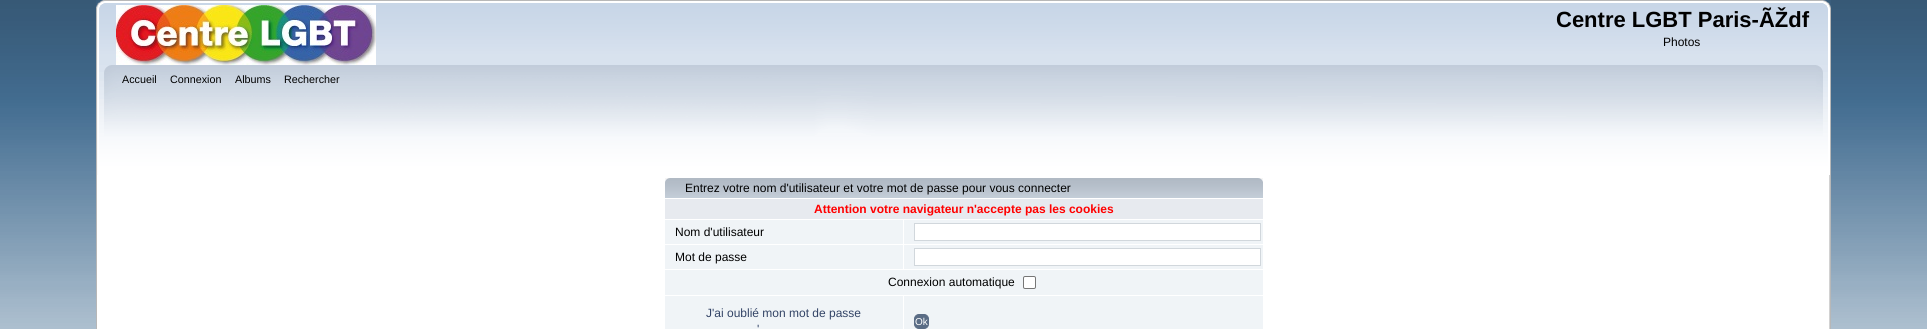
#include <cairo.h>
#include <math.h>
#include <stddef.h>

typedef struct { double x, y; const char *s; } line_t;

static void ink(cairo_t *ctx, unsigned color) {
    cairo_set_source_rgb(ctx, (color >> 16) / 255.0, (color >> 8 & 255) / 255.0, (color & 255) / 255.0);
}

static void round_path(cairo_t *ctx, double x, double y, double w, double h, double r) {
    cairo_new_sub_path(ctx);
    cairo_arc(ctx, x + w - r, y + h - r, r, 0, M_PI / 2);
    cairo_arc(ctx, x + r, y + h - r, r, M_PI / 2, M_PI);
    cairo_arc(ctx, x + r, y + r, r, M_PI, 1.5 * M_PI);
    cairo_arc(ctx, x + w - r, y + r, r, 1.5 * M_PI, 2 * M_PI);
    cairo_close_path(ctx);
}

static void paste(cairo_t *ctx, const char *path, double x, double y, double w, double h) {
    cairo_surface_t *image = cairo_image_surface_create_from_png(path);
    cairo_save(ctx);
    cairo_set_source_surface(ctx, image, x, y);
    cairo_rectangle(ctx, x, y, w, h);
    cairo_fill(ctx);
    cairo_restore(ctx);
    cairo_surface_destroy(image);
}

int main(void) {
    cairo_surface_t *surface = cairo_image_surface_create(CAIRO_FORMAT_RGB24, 1927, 329);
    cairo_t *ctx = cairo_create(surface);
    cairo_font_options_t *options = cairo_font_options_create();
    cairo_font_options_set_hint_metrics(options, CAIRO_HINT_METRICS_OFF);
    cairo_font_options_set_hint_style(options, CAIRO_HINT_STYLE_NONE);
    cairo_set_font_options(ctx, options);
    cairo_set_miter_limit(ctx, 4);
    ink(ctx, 0xFFFFFF);
    cairo_paint(ctx);
    paste(ctx, "media/1.png", 0, 0, 1927, 329);
    paste(ctx, "media/2.png", 96, 0, 1727, 65);
    paste(ctx, "media/3.png", 1823, 0, 8, 65);
    paste(ctx, "media/4.png", 116, 5, 260, 60);
    cairo_select_font_face(ctx, "Liberation Sans", CAIRO_FONT_SLANT_NORMAL, CAIRO_FONT_WEIGHT_BOLD);
    cairo_set_font_size(ctx, 22);
    ink(ctx, 0x000000);
    cairo_move_to(ctx, 1556, 27);
    cairo_show_text(ctx, "Centre LGBT Paris-ÃŽdf");
    cairo_select_font_face(ctx, "Liberation Sans", CAIRO_FONT_SLANT_NORMAL, CAIRO_FONT_WEIGHT_NORMAL);
    cairo_set_font_size(ctx, 12);
    cairo_move_to(ctx, 1663, 46);
    cairo_show_text(ctx, "Photos");
    paste(ctx, "media/5.png", 96, 65, 1720, 110);
    paste(ctx, "media/6.png", 1816, 65, 15, 110);
    cairo_set_font_size(ctx, 10.75);
    {
        static const line_t items[] = {
            {122, 83, "Accueil"},
            {170, 83, "Connexion"},
            {235, 83, "Albums"},
            {284, 83, "Rechercher"},
        };
        for (size_t i = 0; i < sizeof items / sizeof *items; i++) {
            cairo_move_to(ctx, items[i].x, items[i].y);
            cairo_show_text(ctx, items[i].s);
        }
    }
    ink(ctx, 0xFFFFFF);
    cairo_rectangle(ctx, 97, 175, 1732, 154);
    cairo_fill(ctx);
    ink(ctx, 0xB7B7B7);
    cairo_rectangle(ctx, 96, 175, 1, 154);
    cairo_fill(ctx);
    paste(ctx, "media/7.png", 1829, 175, 2, 154);
    paste(ctx, "media/8.png", 665, 178, 598, 20);
    paste(ctx, "media/9.png", 1258, 178, 5, 4);
    cairo_set_font_size(ctx, 12);
    ink(ctx, 0x000000);
    cairo_move_to(ctx, 685, 192);
    cairo_show_text(ctx, "Entrez votre nom d'utilisateur et votre mot de passe pour vous connecter");
    ink(ctx, 0xE7EAEF);
    cairo_rectangle(ctx, 665, 199, 598, 20);
    cairo_fill(ctx);
    cairo_select_font_face(ctx, "Liberation Sans", CAIRO_FONT_SLANT_NORMAL, CAIRO_FONT_WEIGHT_BOLD);
    ink(ctx, 0xFF0000);
    cairo_move_to(ctx, 814, 213);
    cairo_show_text(ctx, "Attention votre navigateur n'accepte pas les cookies");
    ink(ctx, 0xF0F4F7);
    cairo_rectangle(ctx, 665, 220, 238, 24);
    cairo_fill(ctx);
    cairo_select_font_face(ctx, "Liberation Sans", CAIRO_FONT_SLANT_NORMAL, CAIRO_FONT_WEIGHT_NORMAL);
    ink(ctx, 0x000000);
    cairo_move_to(ctx, 675, 236);
    cairo_show_text(ctx, "Nom d'utilisateur");
    ink(ctx, 0xF0F4F7);
    cairo_rectangle(ctx, 904, 220, 359, 24);
    cairo_fill(ctx);
    ink(ctx, 0xFFFFFF);
    cairo_rectangle(ctx, 914.5, 223.5, 346, 17);
    cairo_fill_preserve(ctx);
    ink(ctx, 0xD1D7DC);
    cairo_set_line_width(ctx, 1);
    cairo_stroke(ctx);
    ink(ctx, 0xF0F4F7);
    cairo_rectangle(ctx, 665, 245, 238, 24);
    cairo_fill(ctx);
    ink(ctx, 0x000000);
    cairo_move_to(ctx, 675, 261);
    cairo_show_text(ctx, "Mot de passe");
    ink(ctx, 0xF0F4F7);
    cairo_rectangle(ctx, 904, 245, 359, 24);
    cairo_fill(ctx);
    ink(ctx, 0xFFFFFF);
    cairo_rectangle(ctx, 914.5, 248.5, 346, 17);
    cairo_fill_preserve(ctx);
    ink(ctx, 0xD1D7DC);
    cairo_stroke(ctx);
    ink(ctx, 0xF0F4F7);
    cairo_rectangle(ctx, 665, 270, 598, 25);
    cairo_fill(ctx);
    ink(ctx, 0x000000);
    cairo_move_to(ctx, 888, 286);
    cairo_show_text(ctx, "Connexion automatique");
    ink(ctx, 0xFFFFFF);
    round_path(ctx, 1023.5, 276.5, 12, 12, 1.5);
    cairo_fill_preserve(ctx);
    ink(ctx, 0x767676);
    cairo_stroke(ctx);
    ink(ctx, 0xF0F4F7);
    cairo_rectangle(ctx, 665, 296, 238, 33);
    cairo_fill(ctx);
    ink(ctx, 0x334466);
    cairo_move_to(ctx, 706, 317);
    cairo_show_text(ctx, "J'ai oublié mon mot de passe");
    cairo_move_to(ctx, 757, 333);
    cairo_show_text(ctx, "'");
    ink(ctx, 0xF0F4F7);
    cairo_rectangle(ctx, 904, 296, 359, 33);
    cairo_fill(ctx);
    ink(ctx, 0x5A6C85);
    round_path(ctx, 914.5, 314.5, 14, 14, 4.5);
    cairo_fill_preserve(ctx);
    cairo_stroke(ctx);
    cairo_set_font_size(ctx, 10);
    ink(ctx, 0xFFFFFF);
    cairo_move_to(ctx, 915, 325);
    cairo_show_text(ctx, "Ok");
    cairo_surface_write_to_png(surface, "image.png");
    cairo_font_options_destroy(options);
    cairo_destroy(ctx);
    cairo_surface_destroy(surface);
    return 0;
}
